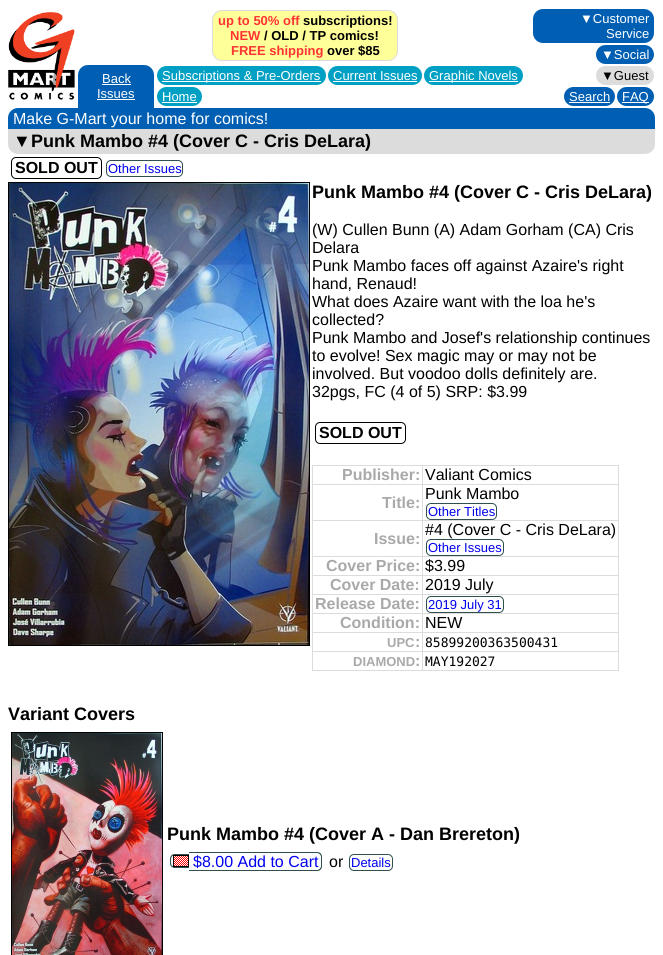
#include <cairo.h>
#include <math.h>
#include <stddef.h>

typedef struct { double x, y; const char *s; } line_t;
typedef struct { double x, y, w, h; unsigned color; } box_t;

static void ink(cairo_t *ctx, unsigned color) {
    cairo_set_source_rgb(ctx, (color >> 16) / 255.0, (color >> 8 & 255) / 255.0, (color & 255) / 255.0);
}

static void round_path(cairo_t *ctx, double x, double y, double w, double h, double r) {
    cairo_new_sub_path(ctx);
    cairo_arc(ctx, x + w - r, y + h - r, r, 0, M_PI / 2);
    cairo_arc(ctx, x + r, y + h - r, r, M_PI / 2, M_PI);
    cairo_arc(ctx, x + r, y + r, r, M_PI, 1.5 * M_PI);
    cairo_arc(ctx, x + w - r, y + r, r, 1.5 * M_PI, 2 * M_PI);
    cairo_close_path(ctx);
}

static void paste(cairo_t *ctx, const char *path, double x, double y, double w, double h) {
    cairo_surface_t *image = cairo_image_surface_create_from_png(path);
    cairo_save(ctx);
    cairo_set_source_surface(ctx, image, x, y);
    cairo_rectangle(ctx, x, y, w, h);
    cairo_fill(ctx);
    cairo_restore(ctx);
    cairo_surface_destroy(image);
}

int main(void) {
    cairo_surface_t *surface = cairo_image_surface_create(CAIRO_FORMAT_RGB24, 663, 955);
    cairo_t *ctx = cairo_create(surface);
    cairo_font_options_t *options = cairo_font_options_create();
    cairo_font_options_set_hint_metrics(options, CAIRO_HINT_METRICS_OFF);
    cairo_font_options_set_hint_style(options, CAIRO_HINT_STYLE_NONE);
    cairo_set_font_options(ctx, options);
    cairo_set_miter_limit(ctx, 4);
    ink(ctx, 0xFFFFFF);
    cairo_paint(ctx);
    paste(ctx, "media/1.png", 8, 12, 67, 88);
    ink(ctx, 0xFFFF99);
    round_path(ctx, 212.5, 10.5, 185, 50, 9.5);
    cairo_fill_preserve(ctx);
    ink(ctx, 0xDCDCDC);
    cairo_set_line_width(ctx, 1);
    cairo_stroke(ctx);
    cairo_select_font_face(ctx, "Liberation Sans", CAIRO_FONT_SLANT_NORMAL, CAIRO_FONT_WEIGHT_BOLD);
    cairo_set_font_size(ctx, 13);
    ink(ctx, 0xFF3333);
    cairo_move_to(ctx, 218, 25);
    cairo_show_text(ctx, "up to 50% off");
    ink(ctx, 0x000000);
    cairo_move_to(ctx, 303, 25);
    cairo_show_text(ctx, "subscriptions!");
    ink(ctx, 0xFF3333);
    cairo_move_to(ctx, 230, 40);
    cairo_show_text(ctx, "NEW");
    ink(ctx, 0x000000);
    cairo_move_to(ctx, 264, 40);
    cairo_show_text(ctx, "/ OLD / TP comics!");
    ink(ctx, 0xFF3333);
    cairo_move_to(ctx, 231, 55);
    cairo_show_text(ctx, "FREE shipping");
    ink(ctx, 0x000000);
    cairo_move_to(ctx, 327, 55);
    cairo_show_text(ctx, "over $85");
    ink(ctx, 0x005FB2);
    round_path(ctx, 533, 9, 121, 34, 10);
    cairo_fill(ctx);
    cairo_select_font_face(ctx, "Liberation Sans", CAIRO_FONT_SLANT_NORMAL, CAIRO_FONT_WEIGHT_NORMAL);
    ink(ctx, 0xFFFFFF);
    cairo_move_to(ctx, 580, 23);
    cairo_show_text(ctx, "▼Customer");
    cairo_move_to(ctx, 606, 38);
    cairo_show_text(ctx, "Service");
    ink(ctx, 0x005FB2);
    round_path(ctx, 596, 45, 58, 19, 9.5);
    cairo_fill(ctx);
    ink(ctx, 0xFFFFFF);
    cairo_move_to(ctx, 601, 59);
    cairo_show_text(ctx, "▼Social");
    ink(ctx, 0xDCDCDC);
    round_path(ctx, 596, 66, 58, 19, 9.5);
    cairo_fill(ctx);
    ink(ctx, 0x000000);
    cairo_move_to(ctx, 601, 80);
    cairo_show_text(ctx, "▼Guest");
    ink(ctx, 0x005FB2);
    round_path(ctx, 564, 87, 51, 19, 9.5);
    cairo_fill(ctx);
    ink(ctx, 0xFFFFFF);
    cairo_move_to(ctx, 569, 101);
    cairo_show_text(ctx, "Search");
    cairo_rectangle(ctx, 569, 102, 41, 1);
    cairo_fill(ctx);
    ink(ctx, 0x005FB2);
    round_path(ctx, 617, 87, 37, 19, 9.5);
    cairo_fill(ctx);
    ink(ctx, 0xFFFFFF);
    cairo_rectangle(ctx, 622, 102, 27, 1);
    cairo_fill(ctx);
    cairo_move_to(ctx, 622, 101);
    cairo_show_text(ctx, "FAQ");
    ink(ctx, 0x005FB2);
    cairo_new_path(ctx);
    cairo_move_to(ctx, 88, 65);
    cairo_line_to(ctx, 144, 65);
    cairo_curve_to(ctx, 149.5, 65, 154, 69.5, 154, 75);
    cairo_line_to(ctx, 154, 109);
    cairo_line_to(ctx, 78, 109);
    cairo_line_to(ctx, 78, 75);
    cairo_curve_to(ctx, 78, 69.5, 82.5, 65, 88, 65);
    cairo_close_path(ctx);
    cairo_fill(ctx);
    ink(ctx, 0xFFFFFF);
    cairo_move_to(ctx, 102, 83);
    cairo_show_text(ctx, "Back");
    cairo_rectangle(ctx, 102, 84, 29, 1);
    cairo_fill(ctx);
    cairo_move_to(ctx, 97, 98);
    cairo_show_text(ctx, "Issues");
    cairo_rectangle(ctx, 97, 99, 38, 1);
    cairo_fill(ctx);
    ink(ctx, 0x00A0C4);
    round_path(ctx, 157, 66, 169, 19, 9.5);
    cairo_fill(ctx);
    ink(ctx, 0xFFFFFF);
    cairo_rectangle(ctx, 162, 81, 159, 1);
    cairo_fill(ctx);
    cairo_move_to(ctx, 162, 80);
    cairo_show_text(ctx, "Subscriptions & Pre-Orders");
    ink(ctx, 0x00A0C4);
    round_path(ctx, 328, 66, 94, 19, 9.5);
    cairo_fill(ctx);
    ink(ctx, 0xFFFFFF);
    cairo_move_to(ctx, 333, 80);
    cairo_show_text(ctx, "Current Issues");
    cairo_rectangle(ctx, 333, 81, 84, 1);
    cairo_fill(ctx);
    ink(ctx, 0x00A0C4);
    round_path(ctx, 424, 66, 99, 19, 9.5);
    cairo_fill(ctx);
    ink(ctx, 0xFFFFFF);
    cairo_rectangle(ctx, 429, 81, 89, 1);
    cairo_fill(ctx);
    cairo_move_to(ctx, 429, 80);
    cairo_show_text(ctx, "Graphic Novels");
    ink(ctx, 0x00A0C4);
    round_path(ctx, 157, 87, 45, 19, 9.5);
    cairo_fill(ctx);
    ink(ctx, 0xFFFFFF);
    cairo_move_to(ctx, 162, 101);
    cairo_show_text(ctx, "Home");
    cairo_rectangle(ctx, 162, 102, 35, 1);
    cairo_fill(ctx);
    ink(ctx, 0x005FB2);
    cairo_new_path(ctx);
    cairo_move_to(ctx, 18, 108);
    cairo_line_to(ctx, 645, 108);
    cairo_curve_to(ctx, 650.5, 108, 655, 112.5, 655, 118);
    cairo_line_to(ctx, 655, 130);
    cairo_line_to(ctx, 8, 130);
    cairo_line_to(ctx, 8, 118);
    cairo_curve_to(ctx, 8, 112.5, 12.5, 108, 18, 108);
    cairo_close_path(ctx);
    cairo_fill(ctx);
    cairo_set_font_size(ctx, 16);
    ink(ctx, 0xFFFFFF);
    cairo_move_to(ctx, 13, 124);
    cairo_show_text(ctx, "Make G-Mart your home for comics!");
    ink(ctx, 0xDCDCDC);
    cairo_new_path(ctx);
    cairo_move_to(ctx, 8, 129);
    cairo_line_to(ctx, 655, 129);
    cairo_line_to(ctx, 655, 144);
    cairo_curve_to(ctx, 655, 149.5, 650.5, 154, 645, 154);
    cairo_line_to(ctx, 18, 154);
    cairo_curve_to(ctx, 12.5, 154, 8, 149.5, 8, 144);
    cairo_close_path(ctx);
    cairo_fill(ctx);
    cairo_set_font_size(ctx, 18);
    ink(ctx, 0x000000);
    cairo_move_to(ctx, 13, 147);
    cairo_show_text(ctx, "▼");
    cairo_select_font_face(ctx, "Liberation Sans", CAIRO_FONT_SLANT_NORMAL, CAIRO_FONT_WEIGHT_BOLD);
    cairo_move_to(ctx, 31, 147);
    cairo_show_text(ctx, "Punk Mambo #4 (Cover C - Cris DeLara)");
    round_path(ctx, 11.5, 157.5, 90, 21, 4.5);
    cairo_stroke(ctx);
    cairo_set_font_size(ctx, 16);
    cairo_move_to(ctx, 15, 173);
    cairo_show_text(ctx, "SOLD OUT");
    round_path(ctx, 106.5, 160.5, 76, 16, 4.5);
    ink(ctx, 0x2F4F4F);
    cairo_stroke(ctx);
    cairo_select_font_face(ctx, "Liberation Sans", CAIRO_FONT_SLANT_NORMAL, CAIRO_FONT_WEIGHT_NORMAL);
    cairo_set_font_size(ctx, 13);
    ink(ctx, 0x0000EE);
    cairo_move_to(ctx, 108, 173);
    cairo_show_text(ctx, "Other Issues");
    cairo_rectangle(ctx, 8.5, 182.5, 301, 463);
    ink(ctx, 0x000000);
    cairo_stroke(ctx);
    paste(ctx, "media/2.png", 9, 183, 300, 462);
    cairo_select_font_face(ctx, "Liberation Sans", CAIRO_FONT_SLANT_NORMAL, CAIRO_FONT_WEIGHT_BOLD);
    cairo_set_font_size(ctx, 18);
    cairo_move_to(ctx, 312, 198);
    cairo_show_text(ctx, "Punk Mambo #4 (Cover C - Cris DeLara)");
    cairo_select_font_face(ctx, "Liberation Sans", CAIRO_FONT_SLANT_NORMAL, CAIRO_FONT_WEIGHT_NORMAL);
    cairo_set_font_size(ctx, 16);
    {
        static const line_t items[] = {
            {312, 235, "(W) Cullen Bunn (A) Adam Gorham (CA) Cris"},
            {312, 253, "Delara"},
            {312, 271, "Punk Mambo faces off against Azaire's right"},
            {312, 289, "hand, Renaud!"},
            {312, 307, "What does Azaire want with the loa he's"},
            {312, 325, "collected?"},
            {312, 343, "Punk Mambo and Josef's relationship continues"},
            {312, 361, "to evolve! Sex magic may or may not be"},
            {312, 379, "involved. But voodoo dolls definitely are."},
            {312, 397, "32pgs, FC (4 of 5) SRP: $3.99"},
        };
        for (size_t i = 0; i < sizeof items / sizeof *items; i++) {
            cairo_move_to(ctx, items[i].x, items[i].y);
            cairo_show_text(ctx, items[i].s);
        }
    }
    round_path(ctx, 315.5, 422.5, 90, 21, 4.5);
    cairo_stroke(ctx);
    cairo_select_font_face(ctx, "Liberation Sans", CAIRO_FONT_SLANT_NORMAL, CAIRO_FONT_WEIGHT_BOLD);
    cairo_move_to(ctx, 319, 438);
    cairo_show_text(ctx, "SOLD OUT");
    {
        static const box_t items[] = {
            {422, 465, 197, 1, 0xDCDCDC},
            {422, 484, 197, 1, 0xDCDCDC},
            {422, 520, 197, 1, 0xDCDCDC},
            {422, 556, 197, 1, 0xDCDCDC},
            {422, 575, 197, 1, 0xDCDCDC},
            {422, 594, 197, 1, 0xDCDCDC},
            {422, 613, 197, 1, 0xDCDCDC},
            {422, 632, 197, 1, 0xDCDCDC},
            {422, 651, 197, 1, 0xDCDCDC},
            {618, 651, 1, 20, 0xDCDCDC},
            {422, 670, 197, 1, 0xDCDCDC},
            {422, 651, 1, 20, 0xDCDCDC},
            {312, 651, 111, 1, 0xDCDCDC},
            {422, 632, 1, 20, 0xDCDCDC},
            {312, 632, 111, 1, 0xDCDCDC},
            {422, 613, 1, 20, 0xDCDCDC},
            {312, 613, 111, 1, 0xDCDCDC},
            {422, 594, 1, 20, 0xDCDCDC},
            {312, 594, 111, 1, 0xDCDCDC},
            {422, 575, 1, 20, 0xDCDCDC},
            {312, 575, 111, 1, 0xDCDCDC},
            {422, 556, 1, 20, 0xDCDCDC},
            {312, 556, 111, 1, 0xDCDCDC},
            {422, 520, 1, 37, 0xDCDCDC},
            {312, 520, 111, 1, 0xDCDCDC},
            {422, 484, 1, 37, 0xDCDCDC},
            {312, 484, 111, 1, 0xDCDCDC},
            {422, 465, 1, 20, 0xDCDCDC},
            {312, 465, 111, 1, 0xDCDCDC},
            {312, 670, 111, 1, 0xDCDCDC},
            {312, 651, 1, 20, 0xDCDCDC},
            {312, 632, 1, 20, 0xDCDCDC},
            {312, 613, 1, 20, 0xDCDCDC},
            {312, 594, 1, 20, 0xDCDCDC},
            {312, 575, 1, 20, 0xDCDCDC},
            {312, 556, 1, 20, 0xDCDCDC},
            {312, 520, 1, 37, 0xDCDCDC},
            {312, 484, 1, 37, 0xDCDCDC},
            {312, 465, 1, 20, 0xDCDCDC},
        };
        for (size_t i = 0; i < sizeof items / sizeof *items; i++) {
            ink(ctx, items[i].color);
            cairo_rectangle(ctx, items[i].x, items[i].y, items[i].w, items[i].h);
            cairo_fill(ctx);
        }
    }
    ink(ctx, 0xA9A9A9);
    cairo_move_to(ctx, 342, 480);
    cairo_show_text(ctx, "Publisher:");
    {
        static const box_t items[] = {
            {618, 632, 1, 20, 0xDCDCDC},
            {618, 613, 1, 20, 0xDCDCDC},
            {618, 594, 1, 20, 0xDCDCDC},
            {618, 575, 1, 20, 0xDCDCDC},
            {618, 556, 1, 20, 0xDCDCDC},
            {618, 520, 1, 37, 0xDCDCDC},
            {618, 484, 1, 37, 0xDCDCDC},
            {618, 465, 1, 20, 0xDCDCDC},
        };
        for (size_t i = 0; i < sizeof items / sizeof *items; i++) {
            ink(ctx, items[i].color);
            cairo_rectangle(ctx, items[i].x, items[i].y, items[i].w, items[i].h);
            cairo_fill(ctx);
        }
    }
    cairo_select_font_face(ctx, "Liberation Sans", CAIRO_FONT_SLANT_NORMAL, CAIRO_FONT_WEIGHT_NORMAL);
    ink(ctx, 0x000000);
    cairo_move_to(ctx, 425, 480);
    cairo_show_text(ctx, "Valiant Comics");
    cairo_select_font_face(ctx, "Liberation Sans", CAIRO_FONT_SLANT_NORMAL, CAIRO_FONT_WEIGHT_BOLD);
    ink(ctx, 0xA9A9A9);
    cairo_move_to(ctx, 382, 508);
    cairo_show_text(ctx, "Title:");
    cairo_select_font_face(ctx, "Liberation Sans", CAIRO_FONT_SLANT_NORMAL, CAIRO_FONT_WEIGHT_NORMAL);
    ink(ctx, 0x000000);
    cairo_move_to(ctx, 425, 499);
    cairo_show_text(ctx, "Punk Mambo");
    round_path(ctx, 426.5, 503.5, 70, 16, 4.5);
    ink(ctx, 0x2F4F4F);
    cairo_stroke(ctx);
    cairo_set_font_size(ctx, 13);
    ink(ctx, 0x0000EE);
    cairo_move_to(ctx, 428, 516);
    cairo_show_text(ctx, "Other Titles");
    cairo_select_font_face(ctx, "Liberation Sans", CAIRO_FONT_SLANT_NORMAL, CAIRO_FONT_WEIGHT_BOLD);
    cairo_set_font_size(ctx, 16);
    ink(ctx, 0xA9A9A9);
    cairo_move_to(ctx, 374, 544);
    cairo_show_text(ctx, "Issue:");
    cairo_select_font_face(ctx, "Liberation Sans", CAIRO_FONT_SLANT_NORMAL, CAIRO_FONT_WEIGHT_NORMAL);
    ink(ctx, 0x000000);
    cairo_move_to(ctx, 425, 535);
    cairo_show_text(ctx, "#4 (Cover C - Cris DeLara)");
    round_path(ctx, 426.5, 539.5, 77, 16, 4.5);
    ink(ctx, 0x2F4F4F);
    cairo_stroke(ctx);
    cairo_set_font_size(ctx, 13);
    ink(ctx, 0x0000EE);
    cairo_move_to(ctx, 428, 552);
    cairo_show_text(ctx, "Other Issues");
    cairo_select_font_face(ctx, "Liberation Sans", CAIRO_FONT_SLANT_NORMAL, CAIRO_FONT_WEIGHT_BOLD);
    cairo_set_font_size(ctx, 16);
    ink(ctx, 0xA9A9A9);
    cairo_move_to(ctx, 326, 571);
    cairo_show_text(ctx, "Cover Price:");
    cairo_select_font_face(ctx, "Liberation Sans", CAIRO_FONT_SLANT_NORMAL, CAIRO_FONT_WEIGHT_NORMAL);
    ink(ctx, 0x000000);
    cairo_move_to(ctx, 425, 571);
    cairo_show_text(ctx, "$3.99");
    cairo_select_font_face(ctx, "Liberation Sans", CAIRO_FONT_SLANT_NORMAL, CAIRO_FONT_WEIGHT_BOLD);
    ink(ctx, 0xA9A9A9);
    cairo_move_to(ctx, 330, 590);
    cairo_show_text(ctx, "Cover Date:");
    cairo_select_font_face(ctx, "Liberation Sans", CAIRO_FONT_SLANT_NORMAL, CAIRO_FONT_WEIGHT_NORMAL);
    ink(ctx, 0x000000);
    cairo_move_to(ctx, 425, 590);
    cairo_show_text(ctx, "2019 July");
    cairo_select_font_face(ctx, "Liberation Sans", CAIRO_FONT_SLANT_NORMAL, CAIRO_FONT_WEIGHT_BOLD);
    ink(ctx, 0xA9A9A9);
    cairo_move_to(ctx, 315, 609);
    cairo_show_text(ctx, "Release Date:");
    round_path(ctx, 426.5, 596.5, 77, 16, 4.5);
    ink(ctx, 0x2F4F4F);
    cairo_stroke(ctx);
    cairo_select_font_face(ctx, "Liberation Sans", CAIRO_FONT_SLANT_NORMAL, CAIRO_FONT_WEIGHT_NORMAL);
    cairo_set_font_size(ctx, 13);
    ink(ctx, 0x0000EE);
    cairo_move_to(ctx, 428, 609);
    cairo_show_text(ctx, "2019 July 31");
    cairo_select_font_face(ctx, "Liberation Sans", CAIRO_FONT_SLANT_NORMAL, CAIRO_FONT_WEIGHT_BOLD);
    cairo_set_font_size(ctx, 16);
    ink(ctx, 0xA9A9A9);
    cairo_move_to(ctx, 340, 628);
    cairo_show_text(ctx, "Condition:");
    cairo_select_font_face(ctx, "Liberation Sans", CAIRO_FONT_SLANT_NORMAL, CAIRO_FONT_WEIGHT_NORMAL);
    ink(ctx, 0x000000);
    cairo_move_to(ctx, 425, 628);
    cairo_show_text(ctx, "NEW");
    cairo_select_font_face(ctx, "Liberation Sans", CAIRO_FONT_SLANT_NORMAL, CAIRO_FONT_WEIGHT_BOLD);
    cairo_set_font_size(ctx, 13);
    ink(ctx, 0xA9A9A9);
    cairo_move_to(ctx, 387, 647);
    cairo_show_text(ctx, "UPC");
    cairo_set_font_size(ctx, 16);
    cairo_move_to(ctx, 415, 647);
    cairo_show_text(ctx, ":");
    cairo_select_font_face(ctx, "DejaVu Sans Mono", CAIRO_FONT_SLANT_NORMAL, CAIRO_FONT_WEIGHT_NORMAL);
    cairo_set_font_size(ctx, 13);
    ink(ctx, 0x000000);
    cairo_move_to(ctx, 425, 647);
    cairo_show_text(ctx, "85899200363500431");
    cairo_select_font_face(ctx, "Liberation Sans", CAIRO_FONT_SLANT_NORMAL, CAIRO_FONT_WEIGHT_BOLD);
    ink(ctx, 0xA9A9A9);
    cairo_move_to(ctx, 353, 666);
    cairo_show_text(ctx, "DIAMOND");
    cairo_set_font_size(ctx, 16);
    cairo_move_to(ctx, 415, 666);
    cairo_show_text(ctx, ":");
    cairo_select_font_face(ctx, "DejaVu Sans Mono", CAIRO_FONT_SLANT_NORMAL, CAIRO_FONT_WEIGHT_NORMAL);
    cairo_set_font_size(ctx, 13);
    ink(ctx, 0x000000);
    cairo_move_to(ctx, 425, 666);
    cairo_show_text(ctx, "MAY192027");
    cairo_select_font_face(ctx, "Liberation Sans", CAIRO_FONT_SLANT_NORMAL, CAIRO_FONT_WEIGHT_BOLD);
    cairo_set_font_size(ctx, 18);
    cairo_move_to(ctx, 8, 720);
    cairo_show_text(ctx, "Variant Covers");
    cairo_rectangle(ctx, 11.5, 732.5, 151, 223);
    cairo_stroke(ctx);
    paste(ctx, "media/3.png", 12, 733, 150, 222);
    cairo_move_to(ctx, 167, 840);
    cairo_show_text(ctx, "Punk Mambo #4 (Cover A - Dan Brereton)");
    ink(ctx, 0x2F4F4F);
    cairo_set_fill_rule(ctx, CAIRO_FILL_RULE_EVEN_ODD);
    cairo_new_path(ctx);
    cairo_move_to(ctx, 175, 854);
    cairo_line_to(ctx, 189, 854);
    cairo_line_to(ctx, 189, 868);
    cairo_line_to(ctx, 175, 868);
    cairo_curve_to(ctx, 172, 868, 170, 866, 170, 863);
    cairo_line_to(ctx, 170, 859);
    cairo_curve_to(ctx, 170, 856, 172, 854, 175, 854);
    cairo_close_path(ctx);
    cairo_move_to(ctx, 175, 855);
    cairo_line_to(ctx, 189, 855);
    cairo_line_to(ctx, 189, 867);
    cairo_line_to(ctx, 177.5, 867);
    cairo_curve_to(ctx, 171, 867, 171, 865.5, 171, 860);
    cairo_curve_to(ctx, 171, 857.5, 172, 855, 175, 855);
    cairo_close_path(ctx);
    cairo_fill(ctx);
    paste(ctx, "media/4.png", 173, 855, 16, 12);
    cairo_new_path(ctx);
    cairo_move_to(ctx, 233, 852);
    cairo_line_to(ctx, 317, 852);
    cairo_curve_to(ctx, 320, 852, 322, 854, 322, 857);
    cairo_line_to(ctx, 322, 866);
    cairo_curve_to(ctx, 322, 869, 320, 871, 317, 871);
    cairo_line_to(ctx, 233, 871);
    cairo_close_path(ctx);
    cairo_move_to(ctx, 233, 853);
    cairo_line_to(ctx, 317, 853);
    cairo_curve_to(ctx, 319, 853, 321, 855, 321, 857);
    cairo_line_to(ctx, 321, 866);
    cairo_curve_to(ctx, 321, 868, 319, 870, 317, 870);
    cairo_line_to(ctx, 233, 870);
    cairo_close_path(ctx);
    cairo_fill(ctx);
    cairo_select_font_face(ctx, "Liberation Sans", CAIRO_FONT_SLANT_NORMAL, CAIRO_FONT_WEIGHT_NORMAL);
    cairo_set_font_size(ctx, 16);
    ink(ctx, 0x0000EE);
    cairo_move_to(ctx, 193, 867);
    cairo_show_text(ctx, "$8.00 Add to Cart");
    ink(ctx, 0x2F4F4F);
    cairo_rectangle(ctx, 189, 852, 44, 1);
    cairo_fill(ctx);
    cairo_rectangle(ctx, 189, 870, 44, 1);
    cairo_fill(ctx);
    ink(ctx, 0x000000);
    cairo_move_to(ctx, 329, 867);
    cairo_show_text(ctx, "or");
    round_path(ctx, 349.5, 854.5, 43, 16, 4.5);
    ink(ctx, 0x2F4F4F);
    cairo_stroke(ctx);
    cairo_set_font_size(ctx, 13);
    ink(ctx, 0x0000EE);
    cairo_move_to(ctx, 351, 867);
    cairo_show_text(ctx, "Details");
    cairo_surface_write_to_png(surface, "image.png");
    cairo_font_options_destroy(options);
    cairo_destroy(ctx);
    cairo_surface_destroy(surface);
    return 0;
}
